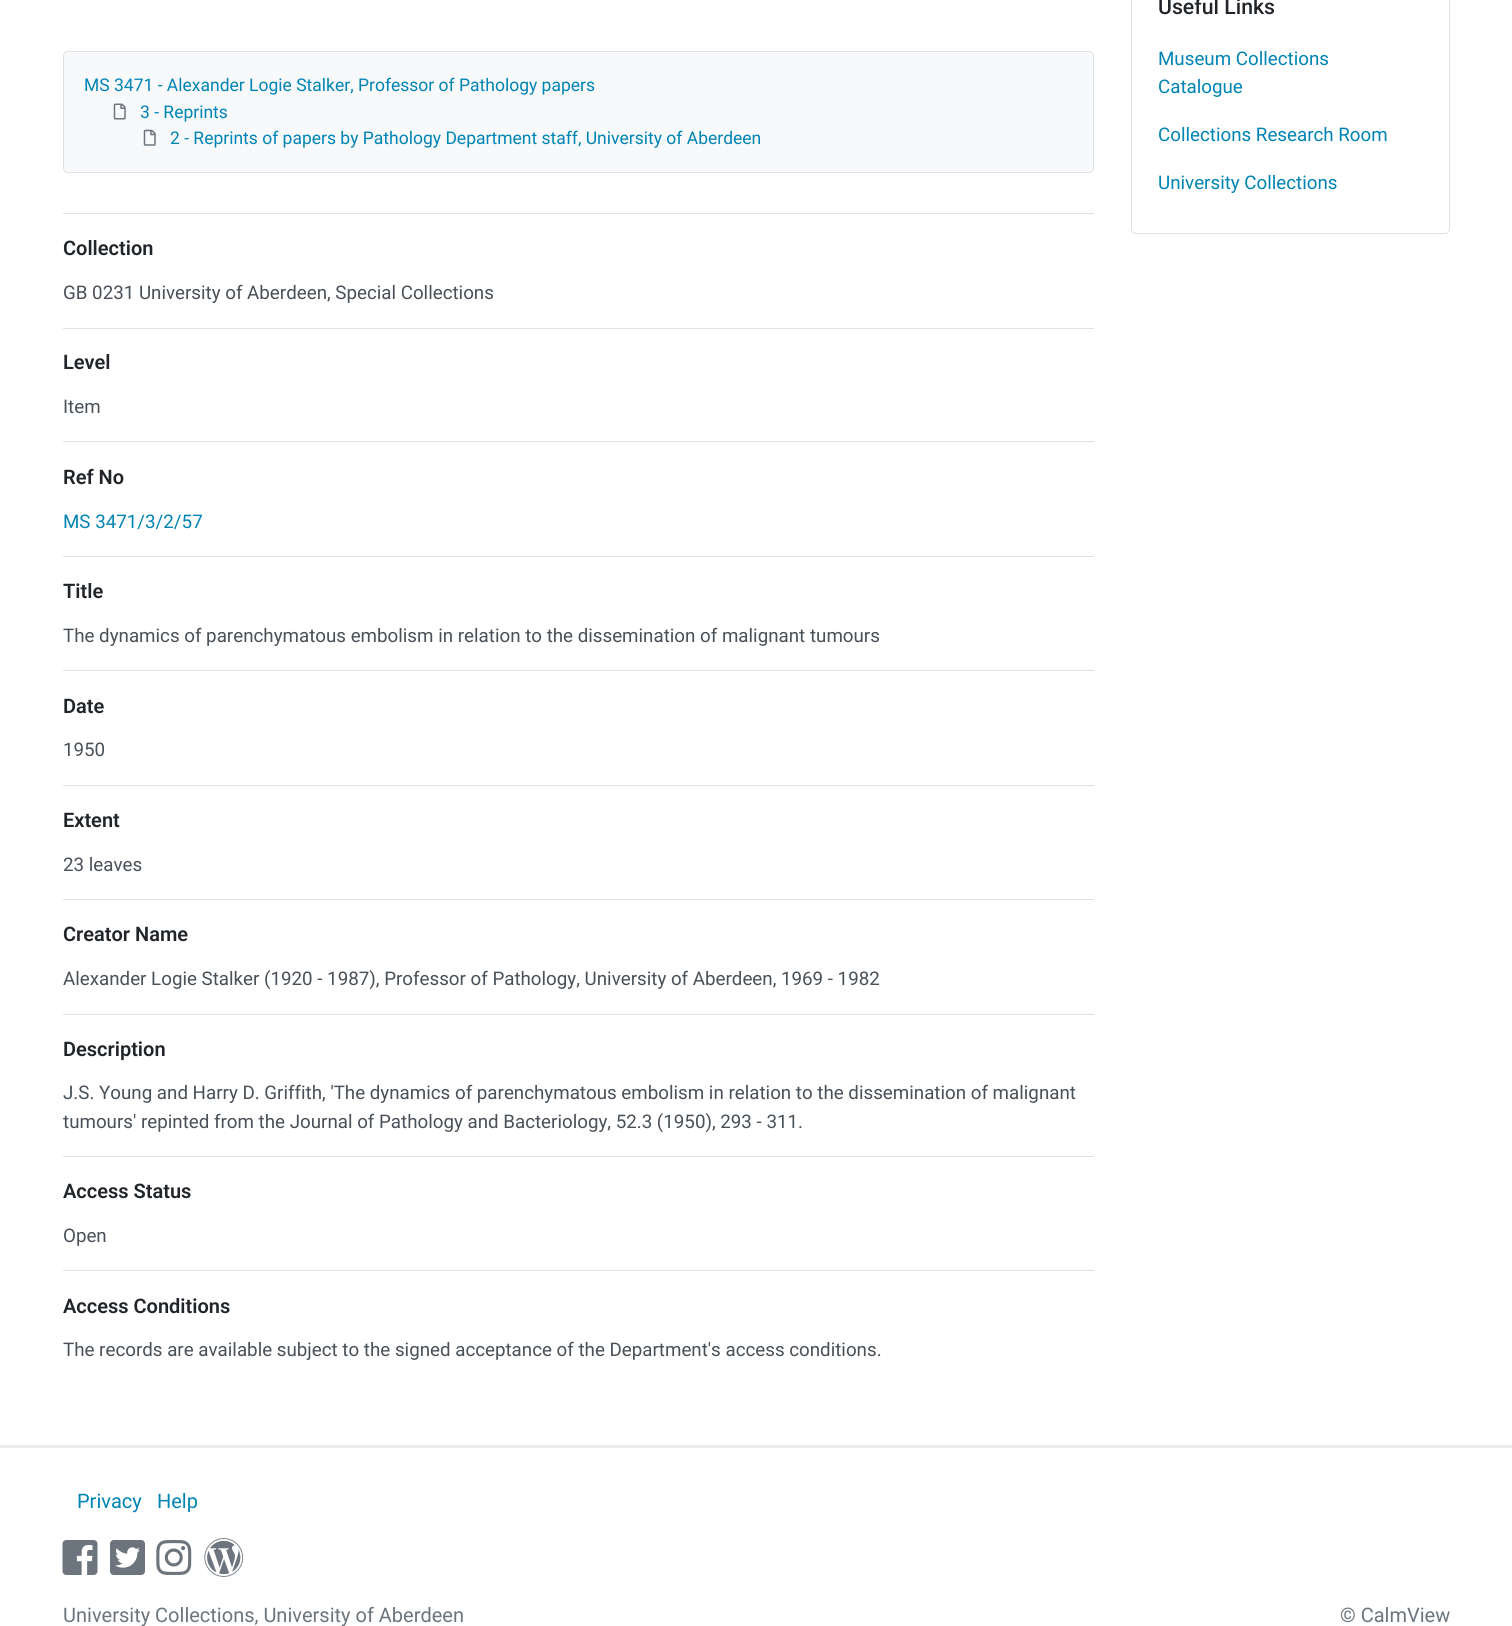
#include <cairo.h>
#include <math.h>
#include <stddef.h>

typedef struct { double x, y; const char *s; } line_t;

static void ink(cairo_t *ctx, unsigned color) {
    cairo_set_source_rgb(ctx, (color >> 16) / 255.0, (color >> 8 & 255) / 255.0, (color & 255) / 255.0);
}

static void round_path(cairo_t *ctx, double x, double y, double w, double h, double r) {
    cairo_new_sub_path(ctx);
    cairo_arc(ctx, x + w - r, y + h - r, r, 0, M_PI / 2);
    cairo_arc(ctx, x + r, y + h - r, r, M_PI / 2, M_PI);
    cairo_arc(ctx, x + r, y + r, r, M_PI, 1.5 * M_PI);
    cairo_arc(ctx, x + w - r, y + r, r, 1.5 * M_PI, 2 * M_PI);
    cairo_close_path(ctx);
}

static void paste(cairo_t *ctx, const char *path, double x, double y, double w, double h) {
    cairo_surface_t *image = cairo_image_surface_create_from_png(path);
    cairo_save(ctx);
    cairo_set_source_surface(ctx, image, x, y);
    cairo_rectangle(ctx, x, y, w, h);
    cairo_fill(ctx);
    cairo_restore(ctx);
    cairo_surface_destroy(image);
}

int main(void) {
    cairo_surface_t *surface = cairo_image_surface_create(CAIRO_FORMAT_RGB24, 1512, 1626);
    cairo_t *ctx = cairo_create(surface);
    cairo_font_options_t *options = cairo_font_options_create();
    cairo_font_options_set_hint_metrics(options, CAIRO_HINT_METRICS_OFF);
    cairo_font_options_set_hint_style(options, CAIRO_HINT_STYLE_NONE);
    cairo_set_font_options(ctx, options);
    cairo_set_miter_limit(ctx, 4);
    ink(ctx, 0xFFFFFF);
    cairo_paint(ctx);
    ink(ctx, 0xF8F9FA);
    round_path(ctx, 63.5, 51.5, 1030, 121, 4.5);
    cairo_fill_preserve(ctx);
    ink(ctx, 0xDEE2E6);
    cairo_set_line_width(ctx, 1);
    cairo_stroke(ctx);
    cairo_select_font_face(ctx, "Roboto", CAIRO_FONT_SLANT_NORMAL, CAIRO_FONT_WEIGHT_NORMAL);
    cairo_set_font_size(ctx, 17.5);
    ink(ctx, 0x0084B4);
    cairo_move_to(ctx, 84, 91);
    cairo_show_text(ctx, "MS 3471 - Alexander Logie Stalker, Professor of Pathology papers");
    paste(ctx, "media/1.png", 113, 103, 13, 17);
    cairo_move_to(ctx, 140, 118);
    cairo_show_text(ctx, "3 - Reprints");
    paste(ctx, "media/2.png", 143, 129, 13, 17);
    cairo_move_to(ctx, 170, 144);
    cairo_show_text(ctx, "2 - Reprints of papers by Pathology Department staff, University of Aberdeen");
    ink(ctx, 0xDEE2E6);
    cairo_rectangle(ctx, 63, 213, 1031, 1);
    cairo_fill(ctx);
    cairo_select_font_face(ctx, "Roboto SemiBold", CAIRO_FONT_SLANT_NORMAL, CAIRO_FONT_WEIGHT_NORMAL);
    cairo_set_font_size(ctx, 20);
    ink(ctx, 0x212529);
    cairo_move_to(ctx, 63, 255);
    cairo_show_text(ctx, "Collection");
    cairo_select_font_face(ctx, "Roboto", CAIRO_FONT_SLANT_NORMAL, CAIRO_FONT_WEIGHT_NORMAL);
    cairo_set_font_size(ctx, 18.75);
    ink(ctx, 0x495057);
    cairo_move_to(ctx, 63, 299);
    cairo_show_text(ctx, "GB 0231 University of Aberdeen, Special Collections");
    ink(ctx, 0xDEE2E6);
    cairo_rectangle(ctx, 63, 328, 1031, 1);
    cairo_fill(ctx);
    cairo_select_font_face(ctx, "Roboto SemiBold", CAIRO_FONT_SLANT_NORMAL, CAIRO_FONT_WEIGHT_NORMAL);
    cairo_set_font_size(ctx, 20);
    ink(ctx, 0x212529);
    cairo_move_to(ctx, 63, 369);
    cairo_show_text(ctx, "Level");
    cairo_select_font_face(ctx, "Roboto", CAIRO_FONT_SLANT_NORMAL, CAIRO_FONT_WEIGHT_NORMAL);
    cairo_set_font_size(ctx, 18.75);
    ink(ctx, 0x495057);
    cairo_move_to(ctx, 63, 413);
    cairo_show_text(ctx, "Item");
    ink(ctx, 0xDEE2E6);
    cairo_rectangle(ctx, 63, 441, 1031, 1);
    cairo_fill(ctx);
    cairo_select_font_face(ctx, "Roboto SemiBold", CAIRO_FONT_SLANT_NORMAL, CAIRO_FONT_WEIGHT_NORMAL);
    cairo_set_font_size(ctx, 20);
    ink(ctx, 0x212529);
    cairo_move_to(ctx, 63, 484);
    cairo_show_text(ctx, "Ref No");
    cairo_select_font_face(ctx, "Roboto", CAIRO_FONT_SLANT_NORMAL, CAIRO_FONT_WEIGHT_NORMAL);
    cairo_set_font_size(ctx, 18.75);
    ink(ctx, 0x0084B4);
    cairo_move_to(ctx, 63, 528);
    cairo_show_text(ctx, "MS 3471/3/2/57");
    ink(ctx, 0xDEE2E6);
    cairo_rectangle(ctx, 63, 556, 1031, 1);
    cairo_fill(ctx);
    cairo_select_font_face(ctx, "Roboto SemiBold", CAIRO_FONT_SLANT_NORMAL, CAIRO_FONT_WEIGHT_NORMAL);
    cairo_set_font_size(ctx, 20);
    ink(ctx, 0x212529);
    cairo_move_to(ctx, 63, 598);
    cairo_show_text(ctx, "Title");
    cairo_select_font_face(ctx, "Roboto", CAIRO_FONT_SLANT_NORMAL, CAIRO_FONT_WEIGHT_NORMAL);
    cairo_set_font_size(ctx, 18.75);
    ink(ctx, 0x495057);
    cairo_move_to(ctx, 63, 642);
    cairo_show_text(ctx, "The dynamics of parenchymatous embolism in relation to the dissemination of malignant tumours");
    ink(ctx, 0xDEE2E6);
    cairo_rectangle(ctx, 63, 670, 1031, 1);
    cairo_fill(ctx);
    cairo_select_font_face(ctx, "Roboto SemiBold", CAIRO_FONT_SLANT_NORMAL, CAIRO_FONT_WEIGHT_NORMAL);
    cairo_set_font_size(ctx, 20);
    ink(ctx, 0x212529);
    cairo_move_to(ctx, 63, 713);
    cairo_show_text(ctx, "Date");
    cairo_select_font_face(ctx, "Roboto", CAIRO_FONT_SLANT_NORMAL, CAIRO_FONT_WEIGHT_NORMAL);
    cairo_set_font_size(ctx, 18.75);
    ink(ctx, 0x495057);
    cairo_move_to(ctx, 63, 756);
    cairo_show_text(ctx, "1950");
    ink(ctx, 0xDEE2E6);
    cairo_rectangle(ctx, 63, 785, 1031, 1);
    cairo_fill(ctx);
    cairo_select_font_face(ctx, "Roboto SemiBold", CAIRO_FONT_SLANT_NORMAL, CAIRO_FONT_WEIGHT_NORMAL);
    cairo_set_font_size(ctx, 20);
    ink(ctx, 0x212529);
    cairo_move_to(ctx, 63, 827);
    cairo_show_text(ctx, "Extent");
    cairo_select_font_face(ctx, "Roboto", CAIRO_FONT_SLANT_NORMAL, CAIRO_FONT_WEIGHT_NORMAL);
    cairo_set_font_size(ctx, 18.75);
    ink(ctx, 0x495057);
    cairo_move_to(ctx, 63, 871);
    cairo_show_text(ctx, "23 leaves");
    ink(ctx, 0xDEE2E6);
    cairo_rectangle(ctx, 63, 899, 1031, 1);
    cairo_fill(ctx);
    cairo_select_font_face(ctx, "Roboto SemiBold", CAIRO_FONT_SLANT_NORMAL, CAIRO_FONT_WEIGHT_NORMAL);
    cairo_set_font_size(ctx, 20);
    ink(ctx, 0x212529);
    cairo_move_to(ctx, 63, 941);
    cairo_show_text(ctx, "Creator Name");
    cairo_select_font_face(ctx, "Roboto", CAIRO_FONT_SLANT_NORMAL, CAIRO_FONT_WEIGHT_NORMAL);
    cairo_set_font_size(ctx, 18.75);
    ink(ctx, 0x495057);
    cairo_move_to(ctx, 63, 985);
    cairo_show_text(ctx, "Alexander Logie Stalker (1920 - 1987), Professor of Pathology, University of Aberdeen, 1969 - 1982");
    ink(ctx, 0xDEE2E6);
    cairo_rectangle(ctx, 63, 1014, 1031, 1);
    cairo_fill(ctx);
    cairo_select_font_face(ctx, "Roboto SemiBold", CAIRO_FONT_SLANT_NORMAL, CAIRO_FONT_WEIGHT_NORMAL);
    cairo_set_font_size(ctx, 20);
    ink(ctx, 0x212529);
    cairo_move_to(ctx, 63, 1056);
    cairo_show_text(ctx, "Description");
    cairo_select_font_face(ctx, "Roboto", CAIRO_FONT_SLANT_NORMAL, CAIRO_FONT_WEIGHT_NORMAL);
    cairo_set_font_size(ctx, 18.75);
    ink(ctx, 0x495057);
    cairo_move_to(ctx, 63, 1099);
    cairo_show_text(ctx, "J.S. Young and Harry D. Griffith, 'The dynamics of parenchymatous embolism in relation to the dissemination of malignant");
    cairo_move_to(ctx, 63, 1128);
    cairo_show_text(ctx, "tumours' repinted from the Journal of Pathology and Bacteriology, 52.3 (1950), 293 - 311.");
    ink(ctx, 0xDEE2E6);
    cairo_rectangle(ctx, 63, 1156, 1031, 1);
    cairo_fill(ctx);
    cairo_select_font_face(ctx, "Roboto SemiBold", CAIRO_FONT_SLANT_NORMAL, CAIRO_FONT_WEIGHT_NORMAL);
    cairo_set_font_size(ctx, 20);
    ink(ctx, 0x212529);
    cairo_move_to(ctx, 63, 1198);
    cairo_show_text(ctx, "Access Status");
    cairo_select_font_face(ctx, "Roboto", CAIRO_FONT_SLANT_NORMAL, CAIRO_FONT_WEIGHT_NORMAL);
    cairo_set_font_size(ctx, 18.75);
    ink(ctx, 0x495057);
    cairo_move_to(ctx, 63, 1242);
    cairo_show_text(ctx, "Open");
    ink(ctx, 0xDEE2E6);
    cairo_rectangle(ctx, 63, 1270, 1031, 1);
    cairo_fill(ctx);
    cairo_select_font_face(ctx, "Roboto SemiBold", CAIRO_FONT_SLANT_NORMAL, CAIRO_FONT_WEIGHT_NORMAL);
    cairo_set_font_size(ctx, 20);
    ink(ctx, 0x212529);
    cairo_move_to(ctx, 63, 1313);
    cairo_show_text(ctx, "Access Conditions");
    cairo_select_font_face(ctx, "Roboto", CAIRO_FONT_SLANT_NORMAL, CAIRO_FONT_WEIGHT_NORMAL);
    cairo_set_font_size(ctx, 18.75);
    ink(ctx, 0x495057);
    cairo_move_to(ctx, 63, 1356);
    cairo_show_text(ctx, "The records are available subject to the signed acceptance of the Department's access conditions.");
    round_path(ctx, 1131.5, -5.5, 318, 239, 4.5);
    ink(ctx, 0xDFDFDF);
    cairo_stroke(ctx);
    cairo_select_font_face(ctx, "Roboto Medium", CAIRO_FONT_SLANT_NORMAL, CAIRO_FONT_WEIGHT_NORMAL);
    cairo_set_font_size(ctx, 21.25);
    ink(ctx, 0x212529);
    cairo_move_to(ctx, 1158, 14);
    cairo_show_text(ctx, "Useful Links");
    cairo_select_font_face(ctx, "Roboto", CAIRO_FONT_SLANT_NORMAL, CAIRO_FONT_WEIGHT_NORMAL);
    cairo_set_font_size(ctx, 18.75);
    ink(ctx, 0x0084B4);
    {
        static const line_t items[] = {
            {1158, 65, "Museum Collections"},
            {1158, 93, "Catalogue"},
            {1158, 141, "Collections Research Room"},
            {1158, 189, "University Collections"},
        };
        for (size_t i = 0; i < sizeof items / sizeof *items; i++) {
            cairo_move_to(ctx, items[i].x, items[i].y);
            cairo_show_text(ctx, items[i].s);
        }
    }
    ink(ctx, 0xE9ECEF);
    cairo_rectangle(ctx, 0, 1445, 1512, 3);
    cairo_fill(ctx);
    cairo_set_font_size(ctx, 20);
    ink(ctx, 0x0084B4);
    cairo_move_to(ctx, 77, 1508);
    cairo_show_text(ctx, "Privacy");
    cairo_move_to(ctx, 157, 1508);
    cairo_show_text(ctx, "Help");
    paste(ctx, "media/3.png", 62, 1540, 36, 35);
    paste(ctx, "media/4.png", 110, 1540, 35, 35);
    paste(ctx, "media/5.png", 156, 1540, 36, 35);
    paste(ctx, "media/6.png", 204, 1538, 40, 39);
    ink(ctx, 0x6C757D);
    cairo_move_to(ctx, 63, 1622);
    cairo_show_text(ctx, "University Collections, University of Aberdeen");
    cairo_move_to(ctx, 1340, 1622);
    cairo_show_text(ctx, "© CalmView");
    cairo_surface_write_to_png(surface, "image.png");
    cairo_font_options_destroy(options);
    cairo_destroy(ctx);
    cairo_surface_destroy(surface);
    return 0;
}
